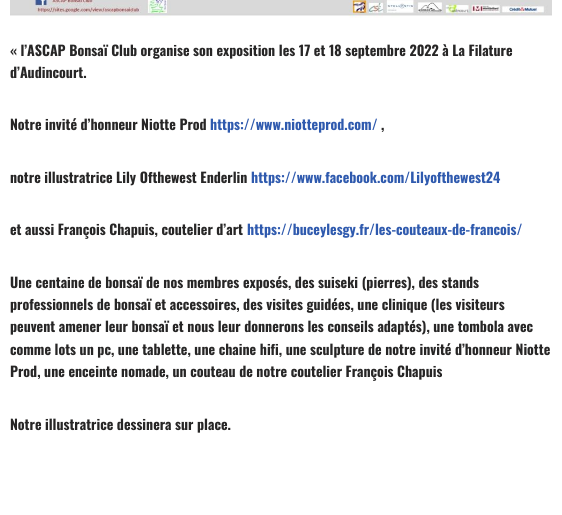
#include <cairo.h>
#include <math.h>
#include <stddef.h>

typedef struct { double x, y; const char *s; } line_t;

static void ink(cairo_t *ctx, unsigned color) {
    cairo_set_source_rgb(ctx, (color >> 16) / 255.0, (color >> 8 & 255) / 255.0, (color & 255) / 255.0);
}

static void paste(cairo_t *ctx, const char *path, double x, double y, double w, double h) {
    cairo_surface_t *image = cairo_image_surface_create_from_png(path);
    cairo_save(ctx);
    cairo_set_source_surface(ctx, image, x, y);
    cairo_rectangle(ctx, x, y, w, h);
    cairo_fill(ctx);
    cairo_restore(ctx);
    cairo_surface_destroy(image);
}

int main(void) {
    cairo_surface_t *surface = cairo_image_surface_create(CAIRO_FORMAT_RGB24, 562, 515);
    cairo_t *ctx = cairo_create(surface);
    cairo_font_options_t *options = cairo_font_options_create();
    cairo_font_options_set_hint_metrics(options, CAIRO_HINT_METRICS_OFF);
    cairo_font_options_set_hint_style(options, CAIRO_HINT_STYLE_NONE);
    cairo_set_font_options(ctx, options);
    cairo_set_miter_limit(ctx, 4);
    ink(ctx, 0xFFFFFF);
    cairo_paint(ctx);
    paste(ctx, "media/1.png", 10, 0, 542, 18);
    cairo_select_font_face(ctx, "Oswald", CAIRO_FONT_SLANT_NORMAL, CAIRO_FONT_WEIGHT_BOLD);
    cairo_set_font_size(ctx, 14);
    ink(ctx, 0x272626);
    {
        static const line_t items[] = {
            {10, 56, "« l’ASCAP Bonsaï Club organise son exposition les 17 et 18 septembre 2022 à La Filature"},
            {10, 78, "d’Audincourt."},
            {10, 130, "Notre invité d’honneur Niotte Prod"},
        };
        for (size_t i = 0; i < sizeof items / sizeof *items; i++) {
            cairo_move_to(ctx, items[i].x, items[i].y);
            cairo_show_text(ctx, items[i].s);
        }
    }
    ink(ctx, 0x2F5AAE);
    cairo_move_to(ctx, 210, 130);
    cairo_show_text(ctx, "https://www.niotteprod.com/");
    ink(ctx, 0x272626);
    cairo_move_to(ctx, 381, 130);
    cairo_show_text(ctx, ",");
    cairo_move_to(ctx, 10, 183);
    cairo_show_text(ctx, "notre illustratrice Lily Ofthewest Enderlin");
    ink(ctx, 0x2F5AAE);
    cairo_move_to(ctx, 251, 183);
    cairo_show_text(ctx, "https://www.facebook.com/Lilyofthewest24");
    ink(ctx, 0x272626);
    cairo_move_to(ctx, 10, 235);
    cairo_show_text(ctx, "et aussi François Chapuis, coutelier d’art");
    ink(ctx, 0x2F5AAE);
    cairo_move_to(ctx, 247, 235);
    cairo_show_text(ctx, "https://buceylesgy.fr/les-couteaux-de-francois/");
    ink(ctx, 0x272626);
    {
        static const line_t items[] = {
            {10, 288, "Une centaine de bonsaï de nos membres exposés, des suiseki (pierres), des stands"},
            {10, 310, "professionnels de bonsaï et accessoires, des visites guidées, une clinique (les visiteurs"},
            {10, 332, "peuvent amener leur bonsaï et nous leur donnerons les conseils adaptés), une tombola avec"},
            {10, 355, "comme lots un pc, une tablette, une chaine hifi, une sculpture de notre invité d’honneur Niotte"},
            {10, 377, "Prod, une enceinte nomade, un couteau de notre coutelier François Chapuis"},
            {10, 430, "Notre illustratrice dessinera sur place."},
        };
        for (size_t i = 0; i < sizeof items / sizeof *items; i++) {
            cairo_move_to(ctx, items[i].x, items[i].y);
            cairo_show_text(ctx, items[i].s);
        }
    }
    cairo_surface_write_to_png(surface, "image.png");
    cairo_font_options_destroy(options);
    cairo_destroy(ctx);
    cairo_surface_destroy(surface);
    return 0;
}
